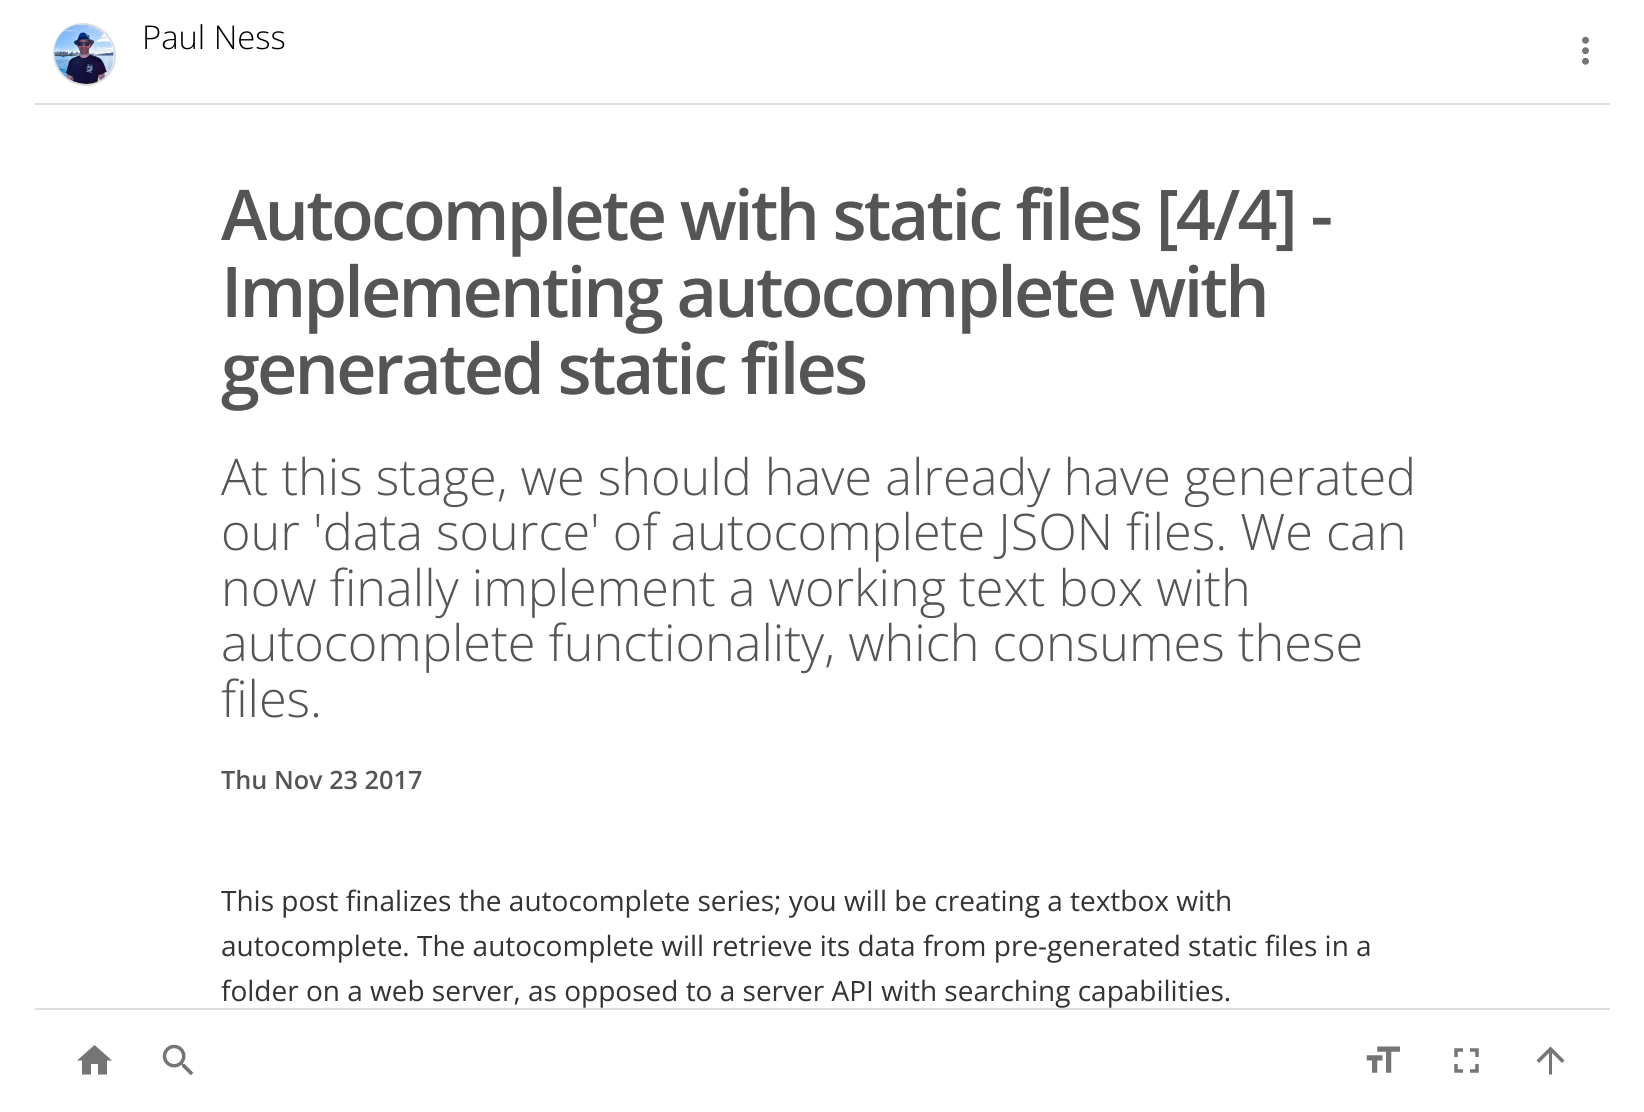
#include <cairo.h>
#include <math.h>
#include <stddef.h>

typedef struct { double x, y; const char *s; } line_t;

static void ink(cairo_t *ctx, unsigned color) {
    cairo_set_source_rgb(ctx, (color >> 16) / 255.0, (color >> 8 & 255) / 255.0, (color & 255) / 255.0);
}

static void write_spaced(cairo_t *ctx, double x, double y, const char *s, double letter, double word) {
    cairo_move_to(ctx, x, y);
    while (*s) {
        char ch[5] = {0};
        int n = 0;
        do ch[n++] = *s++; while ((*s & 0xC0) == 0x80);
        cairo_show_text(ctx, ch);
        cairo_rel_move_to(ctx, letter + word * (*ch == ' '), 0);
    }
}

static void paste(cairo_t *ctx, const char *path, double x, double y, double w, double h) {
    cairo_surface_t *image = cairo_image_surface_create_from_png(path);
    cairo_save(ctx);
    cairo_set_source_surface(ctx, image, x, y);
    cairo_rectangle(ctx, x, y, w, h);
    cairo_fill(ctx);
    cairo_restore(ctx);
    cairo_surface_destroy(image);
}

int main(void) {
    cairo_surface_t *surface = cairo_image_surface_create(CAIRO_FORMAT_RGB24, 1644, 1112);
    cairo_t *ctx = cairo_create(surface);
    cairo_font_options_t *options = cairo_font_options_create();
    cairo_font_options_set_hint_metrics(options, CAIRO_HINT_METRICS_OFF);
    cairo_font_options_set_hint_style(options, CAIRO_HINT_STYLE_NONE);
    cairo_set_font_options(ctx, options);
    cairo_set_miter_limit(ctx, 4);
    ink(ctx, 0xFFFFFF);
    cairo_paint(ctx);
    cairo_new_path(ctx);
    cairo_move_to(ctx, 83, 24);
    cairo_curve_to(ctx, 100.5, 24, 115, 38.5, 115, 56);
    cairo_curve_to(ctx, 115, 72, 102, 85, 86, 85);
    cairo_curve_to(ctx, 68.5, 85, 54, 70.5, 54, 53);
    cairo_curve_to(ctx, 54, 37, 67, 24, 83, 24);
    cairo_close_path(ctx);
    ink(ctx, 0xDDDDDD);
    cairo_stroke(ctx);
    paste(ctx, "media/1.png", 54, 24, 60, 60);
    cairo_select_font_face(ctx, "Open Sans Light", CAIRO_FONT_SLANT_NORMAL, CAIRO_FONT_WEIGHT_NORMAL);
    cairo_set_font_size(ctx, 32.75);
    ink(ctx, 0x000000);
    cairo_move_to(ctx, 142, 49);
    cairo_show_text(ctx, "Paul Ness");
    paste(ctx, "media/2.png", 1582, 36, 7, 29);
    ink(ctx, 0xDEDEDE);
    cairo_rectangle(ctx, 35, 103, 1575, 2);
    cairo_fill(ctx);
    cairo_select_font_face(ctx, "Open Sans SemiBold", CAIRO_FONT_SLANT_NORMAL, CAIRO_FONT_WEIGHT_NORMAL);
    cairo_set_font_size(ctx, 70);
    ink(ctx, 0x555555);
    {
        static const line_t items[] = {
            {221, 240, "Autocomplete with static files [4/4] -"},
            {221, 317, "Implementing autocomplete with"},
            {221, 394, "generated static files"},
        };
        for (size_t i = 0; i < sizeof items / sizeof *items; i++) {
            write_spaced(ctx, items[i].x, items[i].y, items[i].s, -2.8, 0);
        }
    }
    cairo_select_font_face(ctx, "Open Sans Light", CAIRO_FONT_SLANT_NORMAL, CAIRO_FONT_WEIGHT_NORMAL);
    cairo_set_font_size(ctx, 50.4);
    {
        static const line_t items[] = {
            {221, 495, "At this stage, we should have already have generated"},
            {221, 550, "our 'data source' of autocomplete JSON files. We can"},
            {221, 606, "now finally implement a working text box with"},
            {221, 661, "autocomplete functionality, which consumes these"},
            {221, 717, "files."},
        };
        for (size_t i = 0; i < sizeof items / sizeof *items; i++) {
            cairo_move_to(ctx, items[i].x, items[i].y);
            cairo_show_text(ctx, items[i].s);
        }
    }
    cairo_select_font_face(ctx, "Open Sans SemiBold", CAIRO_FONT_SLANT_NORMAL, CAIRO_FONT_WEIGHT_NORMAL);
    cairo_set_font_size(ctx, 25.25);
    cairo_move_to(ctx, 221, 789);
    cairo_show_text(ctx, "Thu Nov 23 2017");
    cairo_select_font_face(ctx, "Open Sans", CAIRO_FONT_SLANT_NORMAL, CAIRO_FONT_WEIGHT_NORMAL);
    cairo_set_font_size(ctx, 28);
    ink(ctx, 0x333333);
    {
        static const line_t items[] = {
            {221, 911, "This post finalizes the autocomplete series; you will be creating a textbox with"},
            {221, 956, "autocomplete. The autocomplete will retrieve its data from pre-generated static files in a"},
            {221, 1001, "folder on a web server, as opposed to a server API with searching capabilities."},
        };
        for (size_t i = 0; i < sizeof items / sizeof *items; i++) {
            cairo_move_to(ctx, items[i].x, items[i].y);
            cairo_show_text(ctx, items[i].s);
        }
    }
    ink(ctx, 0xDEDEDE);
    cairo_rectangle(ctx, 35, 1008, 1575, 2);
    cairo_fill(ctx);
    ink(ctx, 0x757575);
    cairo_new_path(ctx);
    cairo_move_to(ctx, 91, 1074.5);
    cairo_line_to(ctx, 91, 1064);
    cairo_line_to(ctx, 98, 1064);
    cairo_line_to(ctx, 98, 1074.5);
    cairo_line_to(ctx, 107, 1074.5);
    cairo_line_to(ctx, 107, 1060.5);
    cairo_line_to(ctx, 112, 1060.5);
    cairo_line_to(ctx, 94.5, 1045);
    cairo_line_to(ctx, 77, 1060.5);
    cairo_line_to(ctx, 82, 1060.5);
    cairo_line_to(ctx, 82, 1074.5);
    cairo_close_path(ctx);
    cairo_fill(ctx);
    paste(ctx, "media/3.png", 162, 1044, 32, 32);
    paste(ctx, "media/4.png", 1366, 1046, 34, 27);
    paste(ctx, "media/5.png", 1454, 1048, 25, 25);
    cairo_new_path(ctx);
    cairo_move_to(ctx, 1536.5, 1060.5);
    cairo_line_to(ctx, 1539, 1063);
    cairo_line_to(ctx, 1549, 1053);
    cairo_line_to(ctx, 1549, 1074.5);
    cairo_line_to(ctx, 1552, 1074.5);
    cairo_line_to(ctx, 1552, 1053);
    cairo_line_to(ctx, 1562, 1063);
    cairo_line_to(ctx, 1564.5, 1060.5);
    cairo_line_to(ctx, 1550.5, 1046.5);
    cairo_close_path(ctx);
    cairo_fill(ctx);
    cairo_surface_write_to_png(surface, "image.png");
    cairo_font_options_destroy(options);
    cairo_destroy(ctx);
    cairo_surface_destroy(surface);
    return 0;
}
